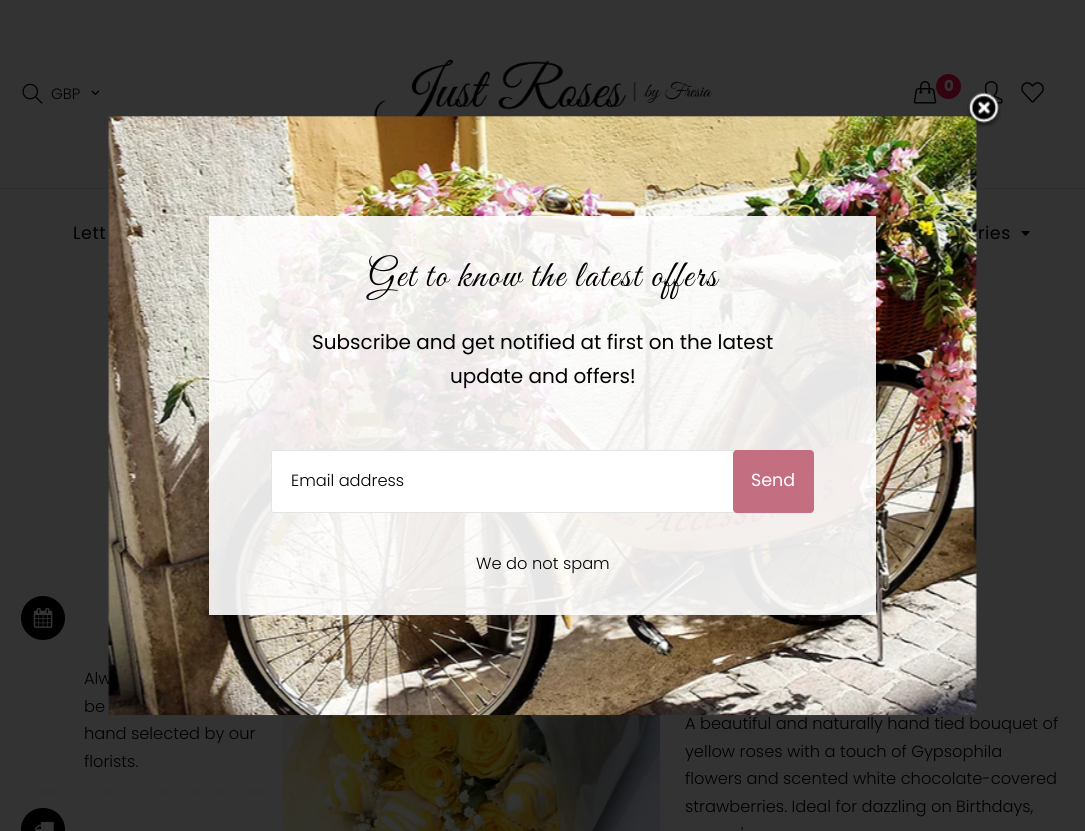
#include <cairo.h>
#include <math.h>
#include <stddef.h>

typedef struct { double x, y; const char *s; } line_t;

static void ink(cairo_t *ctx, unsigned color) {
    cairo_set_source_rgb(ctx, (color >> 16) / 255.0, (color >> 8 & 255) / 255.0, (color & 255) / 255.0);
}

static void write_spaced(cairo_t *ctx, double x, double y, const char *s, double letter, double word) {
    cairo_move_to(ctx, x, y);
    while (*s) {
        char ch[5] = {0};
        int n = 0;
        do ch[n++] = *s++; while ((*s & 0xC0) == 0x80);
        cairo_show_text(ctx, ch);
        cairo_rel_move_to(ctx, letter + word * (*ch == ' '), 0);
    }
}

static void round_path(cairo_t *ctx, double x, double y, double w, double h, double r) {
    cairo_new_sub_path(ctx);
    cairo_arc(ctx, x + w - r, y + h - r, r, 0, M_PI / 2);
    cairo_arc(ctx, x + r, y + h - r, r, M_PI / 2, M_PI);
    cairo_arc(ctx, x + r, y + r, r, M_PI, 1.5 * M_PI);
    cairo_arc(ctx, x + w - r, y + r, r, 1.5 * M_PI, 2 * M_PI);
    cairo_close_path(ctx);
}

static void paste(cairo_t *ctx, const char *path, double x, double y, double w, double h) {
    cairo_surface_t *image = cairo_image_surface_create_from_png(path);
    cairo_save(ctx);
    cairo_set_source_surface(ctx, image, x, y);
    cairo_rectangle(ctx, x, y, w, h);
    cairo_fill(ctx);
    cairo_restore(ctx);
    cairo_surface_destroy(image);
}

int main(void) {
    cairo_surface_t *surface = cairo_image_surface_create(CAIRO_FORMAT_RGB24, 1085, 831);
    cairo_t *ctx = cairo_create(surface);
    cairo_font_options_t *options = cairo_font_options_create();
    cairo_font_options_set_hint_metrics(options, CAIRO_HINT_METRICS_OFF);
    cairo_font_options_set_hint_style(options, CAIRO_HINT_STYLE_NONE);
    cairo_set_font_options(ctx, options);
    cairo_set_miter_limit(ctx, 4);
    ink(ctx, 0x333333);
    cairo_paint(ctx);
    paste(ctx, "media/1.png", 374, 59, 338, 58);
    paste(ctx, "media/2.png", 913, 81, 24, 23);
    ink(ctx, 0x330410);
    cairo_arc(ctx, 948.5, 86.5, 12.5, 0, 2 * M_PI);
    cairo_fill(ctx);
    cairo_select_font_face(ctx, "Poppins", CAIRO_FONT_SLANT_NORMAL, CAIRO_FONT_WEIGHT_BOLD);
    cairo_set_font_size(ctx, 15);
    ink(ctx, 0x333333);
    cairo_move_to(ctx, 944, 91);
    cairo_show_text(ctx, "0");
    paste(ctx, "media/3.png", 980, 81, 23, 23);
    paste(ctx, "media/4.png", 1021, 82, 23, 21);
    paste(ctx, "media/5.png", 22, 83, 21, 21);
    cairo_select_font_face(ctx, "Poppins Light", CAIRO_FONT_SLANT_NORMAL, CAIRO_FONT_WEIGHT_NORMAL);
    ink(ctx, 0x000000);
    cairo_move_to(ctx, 51, 99);
    cairo_show_text(ctx, "GBP");
    paste(ctx, "media/6.png", 91, 90, 9, 6);
    ink(ctx, 0x2E2E2E);
    cairo_rectangle(ctx, 0, 188, 1085, 1);
    cairo_fill(ctx);
    cairo_select_font_face(ctx, "Poppins", CAIRO_FONT_SLANT_NORMAL, CAIRO_FONT_WEIGHT_NORMAL);
    cairo_set_font_size(ctx, 17.5);
    ink(ctx, 0x000000);
    write_spaced(ctx, 73, 239, "Lett", 0.5, 0);
    write_spaced(ctx, 978, 239, "ries", 0.5, 0);
    paste(ctx, "media/7.png", 1021, 231, 9, 5);
    cairo_new_path(ctx);
    cairo_move_to(ctx, 21, 792);
    cairo_line_to(ctx, 270, 792);
    ink(ctx, 0x2E2E2E);
    cairo_set_line_width(ctx, 1.2);
    cairo_set_dash(ctx, (double[]){3.75, 2.54}, 2, 0);
    cairo_stroke(ctx);
    ink(ctx, 0x000000);
    cairo_arc(ctx, 43, 618, 22, 0, 2 * M_PI);
    cairo_fill(ctx);
    paste(ctx, "media/8.png", 33, 607, 20, 21);
    cairo_select_font_face(ctx, "Poppins Light", CAIRO_FONT_SLANT_NORMAL, CAIRO_FONT_WEIGHT_NORMAL);
    cairo_set_font_size(ctx, 16.25);
    {
        static const line_t items[] = {
            {84, 684, "Alw"},
            {84, 712, "be"},
            {84, 739, "hand selected by our"},
            {84, 767, "florists."},
        };
        for (size_t i = 0; i < sizeof items / sizeof *items; i++) {
            cairo_move_to(ctx, items[i].x, items[i].y);
            cairo_show_text(ctx, items[i].s);
        }
    }
    round_path(ctx, 21, 808, 44, 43, 21.5);
    cairo_fill(ctx);
    paste(ctx, "media/9.png", 35, 821, 19, 10);
    paste(ctx, "media/10.png", 282, 715, 378, 116);
    {
        static const line_t items[] = {
            {685, 729, "A beautiful and naturally hand tied bouquet of"},
            {685, 757, "yellow roses with a touch of Gypsophila"},
            {685, 784, "flowers and scented white chocolate-covered"},
            {685, 812, "strawberries. Ideal for dazzling on Birthdays,"},
            {741, 840, "'"},
        };
        for (size_t i = 0; i < sizeof items / sizeof *items; i++) {
            cairo_move_to(ctx, items[i].x, items[i].y);
            cairo_show_text(ctx, items[i].s);
        }
    }
    paste(ctx, "media/11.png", 108, 116, 869, 600);
    paste(ctx, "media/12.png", 967, 92, 34, 35);
    cairo_set_source_rgba(ctx, 1, 1, 1, 0.9);
    cairo_rectangle(ctx, 209, 216, 667, 399);
    cairo_fill(ctx);
    cairo_select_font_face(ctx, "Great Vibes", CAIRO_FONT_SLANT_NORMAL, CAIRO_FONT_WEIGHT_NORMAL);
    cairo_set_font_size(ctx, 37.5);
    ink(ctx, 0x000000);
    write_spaced(ctx, 368, 286, "Get to know the latest offers", 1.9, 0);
    cairo_select_font_face(ctx, "Poppins", CAIRO_FONT_SLANT_NORMAL, CAIRO_FONT_WEIGHT_NORMAL);
    cairo_set_font_size(ctx, 20);
    cairo_move_to(ctx, 312, 349);
    cairo_show_text(ctx, "Subscribe and get notified at first on the latest");
    cairo_move_to(ctx, 450, 383);
    cairo_show_text(ctx, "update and offers!");
    ink(ctx, 0xFFFFFF);
    round_path(ctx, 271.5, 450.5, 542, 62, 2);
    cairo_fill_preserve(ctx);
    ink(ctx, 0xE4E4E4);
    cairo_set_line_width(ctx, 1);
    cairo_set_dash(ctx, NULL, 0, 0);
    cairo_stroke(ctx);
    cairo_select_font_face(ctx, "Poppins Light", CAIRO_FONT_SLANT_NORMAL, CAIRO_FONT_WEIGHT_NORMAL);
    cairo_set_font_size(ctx, 16.25);
    ink(ctx, 0x000000);
    cairo_move_to(ctx, 291, 486);
    cairo_show_text(ctx, "Email address");
    ink(ctx, 0xC36E81);
    round_path(ctx, 733, 450, 81, 63, 4);
    cairo_fill(ctx);
    cairo_select_font_face(ctx, "Poppins", CAIRO_FONT_SLANT_NORMAL, CAIRO_FONT_WEIGHT_NORMAL);
    cairo_set_font_size(ctx, 17.5);
    ink(ctx, 0xFFFFFF);
    cairo_move_to(ctx, 751, 486);
    cairo_show_text(ctx, "Send");
    cairo_select_font_face(ctx, "Poppins Light", CAIRO_FONT_SLANT_NORMAL, CAIRO_FONT_WEIGHT_NORMAL);
    cairo_set_font_size(ctx, 16.25);
    ink(ctx, 0x000000);
    cairo_move_to(ctx, 476, 569);
    cairo_show_text(ctx, "We do not spam");
    cairo_surface_write_to_png(surface, "image.png");
    cairo_font_options_destroy(options);
    cairo_destroy(ctx);
    cairo_surface_destroy(surface);
    return 0;
}
